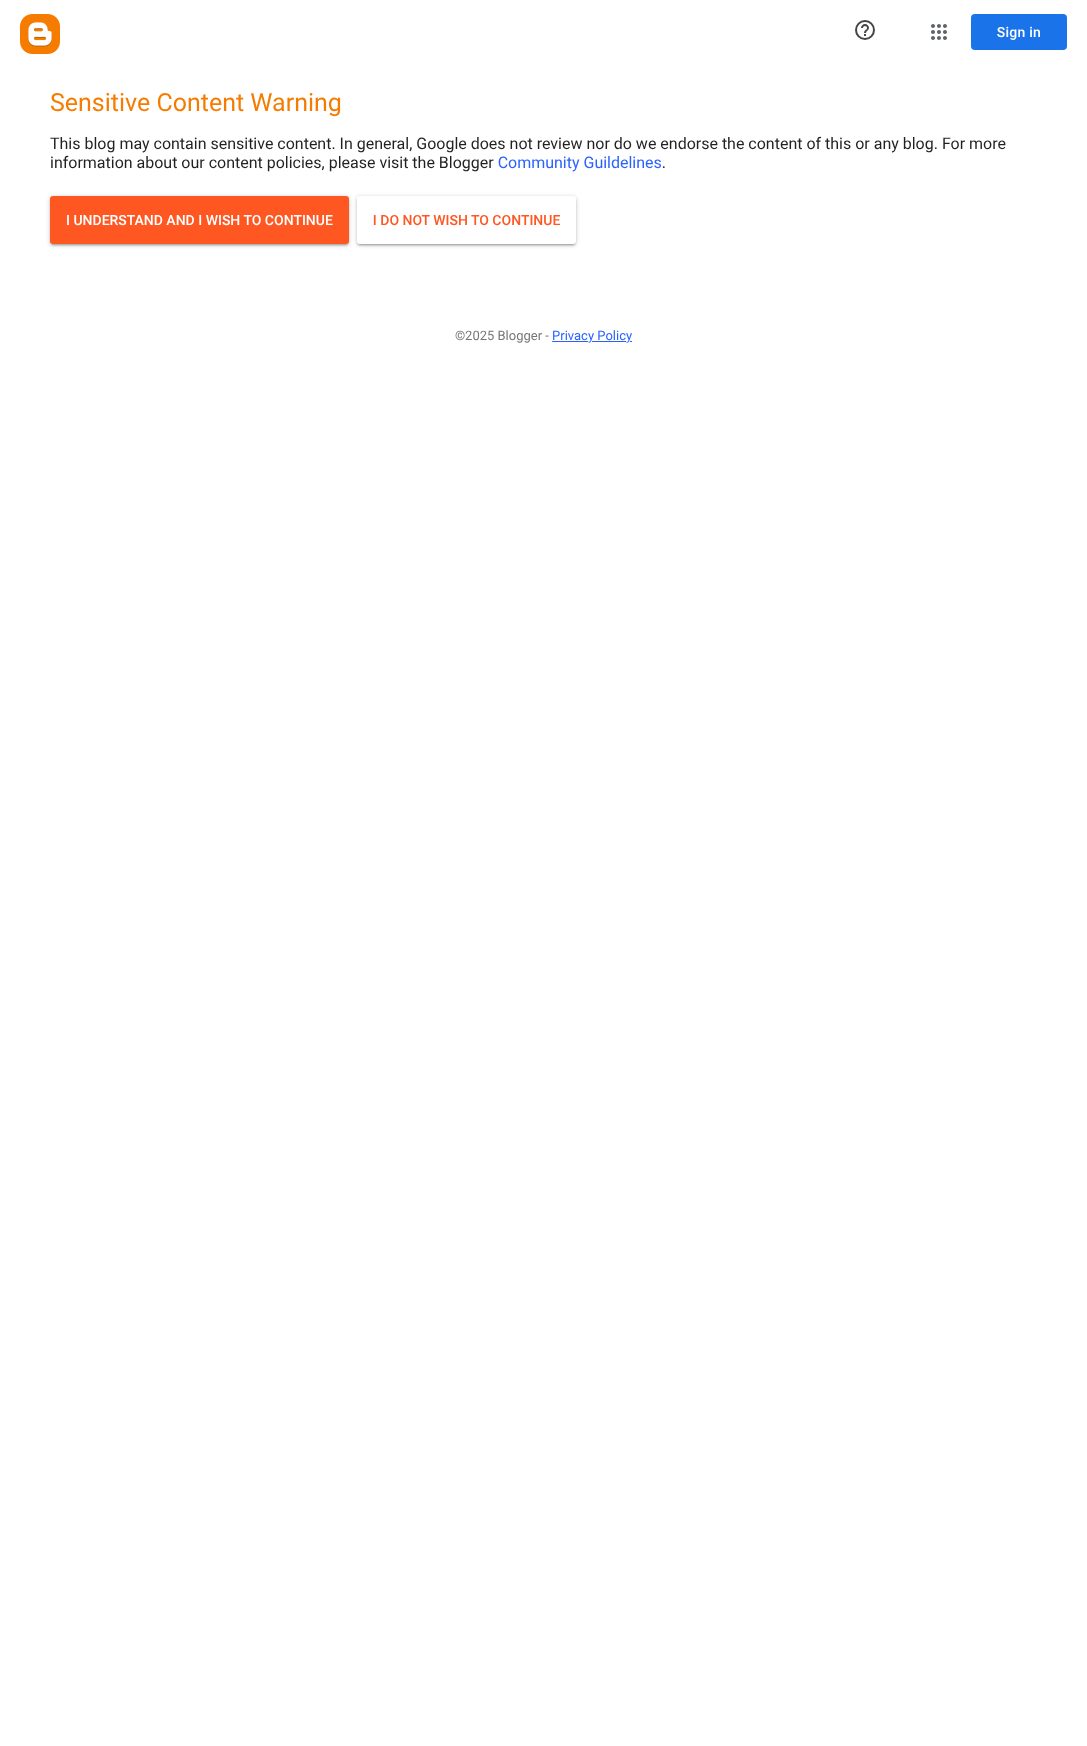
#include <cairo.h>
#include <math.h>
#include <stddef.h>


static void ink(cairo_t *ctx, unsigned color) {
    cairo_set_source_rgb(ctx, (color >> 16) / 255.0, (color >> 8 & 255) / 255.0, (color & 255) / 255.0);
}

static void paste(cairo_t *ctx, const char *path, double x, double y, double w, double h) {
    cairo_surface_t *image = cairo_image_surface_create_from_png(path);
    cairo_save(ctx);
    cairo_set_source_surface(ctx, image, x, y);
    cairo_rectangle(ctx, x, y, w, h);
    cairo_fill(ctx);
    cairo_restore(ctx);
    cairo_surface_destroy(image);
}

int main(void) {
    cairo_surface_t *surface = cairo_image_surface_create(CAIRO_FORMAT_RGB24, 1087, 1746);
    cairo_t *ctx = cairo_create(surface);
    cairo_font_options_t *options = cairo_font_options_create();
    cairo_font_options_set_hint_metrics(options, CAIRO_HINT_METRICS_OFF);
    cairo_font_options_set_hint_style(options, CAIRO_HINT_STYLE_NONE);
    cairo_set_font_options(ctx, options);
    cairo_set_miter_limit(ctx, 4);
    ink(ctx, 0xFFFFFF);
    cairo_paint(ctx);
    paste(ctx, "media/1.png", 20, 14, 1047, 329);
    cairo_surface_write_to_png(surface, "image.png");
    cairo_font_options_destroy(options);
    cairo_destroy(ctx);
    cairo_surface_destroy(surface);
    return 0;
}
